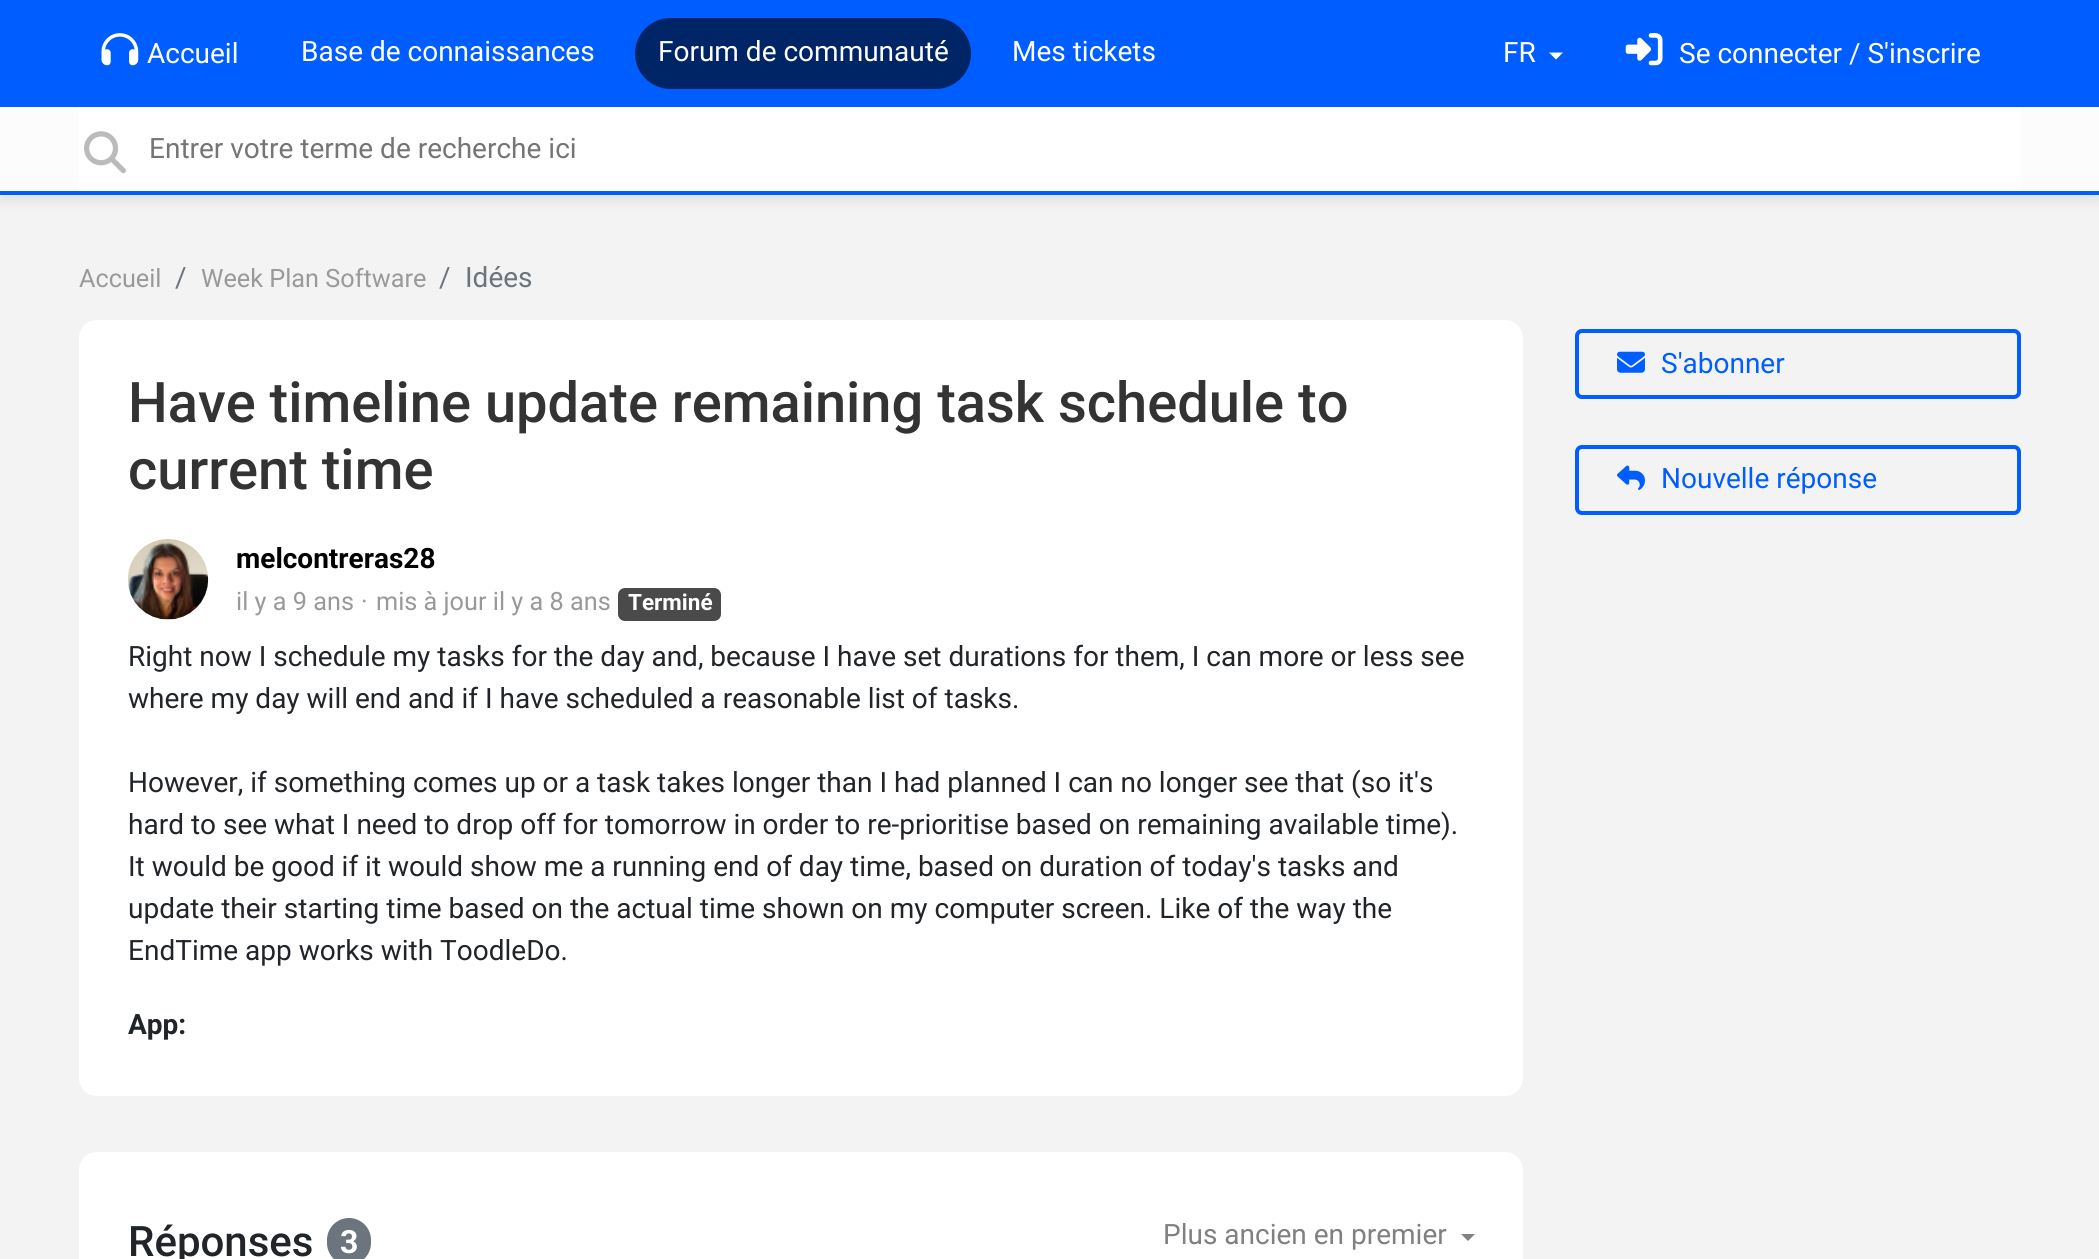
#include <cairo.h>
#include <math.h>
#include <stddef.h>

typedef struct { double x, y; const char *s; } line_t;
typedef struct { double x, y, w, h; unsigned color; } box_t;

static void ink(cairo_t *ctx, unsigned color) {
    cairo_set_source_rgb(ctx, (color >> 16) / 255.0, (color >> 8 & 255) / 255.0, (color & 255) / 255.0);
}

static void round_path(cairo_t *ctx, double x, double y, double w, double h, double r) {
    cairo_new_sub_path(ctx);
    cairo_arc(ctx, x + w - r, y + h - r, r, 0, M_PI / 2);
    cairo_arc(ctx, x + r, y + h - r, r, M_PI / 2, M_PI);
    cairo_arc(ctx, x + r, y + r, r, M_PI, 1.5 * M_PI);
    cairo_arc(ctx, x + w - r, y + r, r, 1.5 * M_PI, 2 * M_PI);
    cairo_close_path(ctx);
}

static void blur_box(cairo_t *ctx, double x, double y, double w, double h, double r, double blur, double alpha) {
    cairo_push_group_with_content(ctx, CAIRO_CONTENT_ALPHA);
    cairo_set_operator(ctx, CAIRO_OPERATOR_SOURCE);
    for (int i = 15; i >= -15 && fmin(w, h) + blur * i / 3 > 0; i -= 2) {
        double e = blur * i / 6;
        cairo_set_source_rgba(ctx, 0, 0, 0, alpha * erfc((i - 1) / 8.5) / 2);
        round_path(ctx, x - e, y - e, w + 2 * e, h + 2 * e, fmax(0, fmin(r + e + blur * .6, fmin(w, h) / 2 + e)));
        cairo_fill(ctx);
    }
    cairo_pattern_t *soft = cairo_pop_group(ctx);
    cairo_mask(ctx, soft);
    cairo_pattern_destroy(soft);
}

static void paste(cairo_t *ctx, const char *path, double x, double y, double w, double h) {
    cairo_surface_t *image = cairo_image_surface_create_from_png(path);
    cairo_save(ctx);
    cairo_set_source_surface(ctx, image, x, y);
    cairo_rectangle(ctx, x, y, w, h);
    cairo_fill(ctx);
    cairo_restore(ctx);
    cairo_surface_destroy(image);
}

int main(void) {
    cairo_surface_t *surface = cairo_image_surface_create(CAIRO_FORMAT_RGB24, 2099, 1259);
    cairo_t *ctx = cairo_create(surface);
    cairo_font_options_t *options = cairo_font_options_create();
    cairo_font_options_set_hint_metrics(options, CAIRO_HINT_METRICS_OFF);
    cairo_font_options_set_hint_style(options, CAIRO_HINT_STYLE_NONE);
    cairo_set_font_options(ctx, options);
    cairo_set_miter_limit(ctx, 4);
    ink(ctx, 0xF3F3F3);
    cairo_paint(ctx);
    ink(ctx, 0x005DFF);
    cairo_rectangle(ctx, 0, 0, 2099, 107);
    cairo_fill(ctx);
    paste(ctx, "media/1.png", 101, 33, 38, 33);
    cairo_select_font_face(ctx, "Roboto", CAIRO_FONT_SLANT_NORMAL, CAIRO_FONT_WEIGHT_NORMAL);
    cairo_set_font_size(ctx, 28);
    ink(ctx, 0xFFFFFF);
    cairo_move_to(ctx, 147, 63);
    cairo_show_text(ctx, "Accueil");
    cairo_move_to(ctx, 301, 61);
    cairo_show_text(ctx, "Base de connaissances");
    ink(ctx, 0x002566);
    round_path(ctx, 635, 18, 336, 71, 35.5);
    cairo_fill(ctx);
    ink(ctx, 0xFFFFFF);
    {
        static const line_t items[] = {
            {658, 61, "Forum de communauté"},
            {1012, 61, "Mes tickets"},
            {1503, 62, "FR"},
        };
        for (size_t i = 0; i < sizeof items / sizeof *items; i++) {
            cairo_move_to(ctx, items[i].x, items[i].y);
            cairo_show_text(ctx, items[i].s);
        }
    }
    cairo_new_path(ctx);
    cairo_move_to(ctx, 1549, 52.5);
    cairo_line_to(ctx, 1563, 52.5);
    cairo_line_to(ctx, 1556, 59.5);
    cairo_close_path(ctx);
    cairo_fill(ctx);
    paste(ctx, "media/2.png", 1625, 33, 38, 33);
    cairo_move_to(ctx, 1679, 63);
    cairo_show_text(ctx, "Se connecter / S'inscrire");
    ink(ctx, 0x646464);
    blur_box(ctx, 0, 116, 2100, 87, 0, 4.5, 0.1);
    {
        static const box_t items[] = {
            {0, 107, 2099, 84, 0xFCFCFC},
            {0, 191, 2099, 4, 0x005DFF},
            {79, 107, 1942, 84, 0xFFFFFF},
        };
        for (size_t i = 0; i < sizeof items / sizeof *items; i++) {
            ink(ctx, items[i].color);
            cairo_rectangle(ctx, items[i].x, items[i].y, items[i].w, items[i].h);
            cairo_fill(ctx);
        }
    }
    paste(ctx, "media/3.png", 84, 131, 42, 43);
    ink(ctx, 0x757575);
    cairo_move_to(ctx, 149, 158);
    cairo_show_text(ctx, "Entrer votre terme de recherche ici");
    cairo_set_font_size(ctx, 25.25);
    ink(ctx, 0x999999);
    cairo_move_to(ctx, 79, 287);
    cairo_show_text(ctx, "Accueil");
    cairo_set_font_size(ctx, 28);
    ink(ctx, 0x6C757D);
    cairo_move_to(ctx, 175, 287);
    cairo_show_text(ctx, "/");
    cairo_set_font_size(ctx, 25.25);
    ink(ctx, 0x999999);
    cairo_move_to(ctx, 201, 287);
    cairo_show_text(ctx, "Week Plan Software");
    cairo_set_font_size(ctx, 28);
    ink(ctx, 0x6C757D);
    cairo_move_to(ctx, 439, 287);
    cairo_show_text(ctx, "/");
    cairo_move_to(ctx, 465, 287);
    cairo_show_text(ctx, "Idées");
    ink(ctx, 0xFFFFFF);
    round_path(ctx, 79, 320, 1444, 776, 18);
    cairo_fill(ctx);
    cairo_select_font_face(ctx, "Roboto Medium", CAIRO_FONT_SLANT_NORMAL, CAIRO_FONT_WEIGHT_NORMAL);
    cairo_set_font_size(ctx, 56);
    ink(ctx, 0x333333);
    cairo_move_to(ctx, 128, 422);
    cairo_show_text(ctx, "Have timeline update remaining task schedule to");
    cairo_move_to(ctx, 128, 489);
    cairo_show_text(ctx, "current time");
    paste(ctx, "media/4.png", 127, 539, 82, 81);
    cairo_select_font_face(ctx, "Roboto", CAIRO_FONT_SLANT_NORMAL, CAIRO_FONT_WEIGHT_BOLD);
    cairo_set_font_size(ctx, 28);
    ink(ctx, 0x000000);
    cairo_move_to(ctx, 236, 568);
    cairo_show_text(ctx, "melcontreras28");
    cairo_select_font_face(ctx, "Roboto", CAIRO_FONT_SLANT_NORMAL, CAIRO_FONT_WEIGHT_NORMAL);
    cairo_set_font_size(ctx, 25.25);
    ink(ctx, 0x999999);
    {
        static const line_t items[] = {
            {236, 610, "il y a 9 ans"},
            {361, 610, "·"},
            {376, 610, "mis à jour il y a 8 ans"},
        };
        for (size_t i = 0; i < sizeof items / sizeof *items; i++) {
            cairo_move_to(ctx, items[i].x, items[i].y);
            cairo_show_text(ctx, items[i].s);
        }
    }
    ink(ctx, 0x4A4A4A);
    round_path(ctx, 618, 588, 103, 33, 7);
    cairo_fill(ctx);
    cairo_select_font_face(ctx, "Roboto", CAIRO_FONT_SLANT_NORMAL, CAIRO_FONT_WEIGHT_BOLD);
    cairo_set_font_size(ctx, 22.5);
    ink(ctx, 0xFFFFFF);
    cairo_move_to(ctx, 628, 610);
    cairo_show_text(ctx, "Terminé");
    cairo_select_font_face(ctx, "Roboto", CAIRO_FONT_SLANT_NORMAL, CAIRO_FONT_WEIGHT_NORMAL);
    cairo_set_font_size(ctx, 28);
    ink(ctx, 0x212529);
    {
        static const line_t items[] = {
            {128, 666, "Right now I schedule my tasks for the day and, because I have set durations for them, I can more or less see"},
            {128, 708, "where my day will end and if I have scheduled a reasonable list of tasks."},
            {128, 792, "However, if something comes up or a task takes longer than I had planned I can no longer see that (so it's"},
            {128, 834, "hard to see what I need to drop off for tomorrow in order to re-prioritise based on remaining available time)."},
            {128, 876, "It would be good if it would show me a running end of day time, based on duration of today's tasks and"},
            {128, 918, "update their starting time based on the actual time shown on my computer screen. Like of the way the"},
            {128, 960, "EndTime app works with ToodleDo."},
        };
        for (size_t i = 0; i < sizeof items / sizeof *items; i++) {
            cairo_move_to(ctx, items[i].x, items[i].y);
            cairo_show_text(ctx, items[i].s);
        }
    }
    cairo_select_font_face(ctx, "Roboto", CAIRO_FONT_SLANT_NORMAL, CAIRO_FONT_WEIGHT_BOLD);
    cairo_move_to(ctx, 128, 1034);
    cairo_show_text(ctx, "App:");
    round_path(ctx, 1577, 331, 442, 66, 5);
    ink(ctx, 0x005DFF);
    cairo_set_line_width(ctx, 4);
    cairo_stroke(ctx);
    paste(ctx, "media/5.png", 1617, 351, 28, 22);
    cairo_select_font_face(ctx, "Roboto", CAIRO_FONT_SLANT_NORMAL, CAIRO_FONT_WEIGHT_NORMAL);
    cairo_move_to(ctx, 1661, 373);
    cairo_show_text(ctx, "S'abonner");
    round_path(ctx, 1577, 447, 442, 66, 5);
    cairo_stroke(ctx);
    paste(ctx, "media/6.png", 1617, 465, 28, 25);
    cairo_move_to(ctx, 1661, 488);
    cairo_show_text(ctx, "Nouvelle réponse");
    ink(ctx, 0xFFFFFF);
    round_path(ctx, 79, 1152, 1444, 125, 18);
    cairo_fill(ctx);
    cairo_select_font_face(ctx, "Roboto Medium", CAIRO_FONT_SLANT_NORMAL, CAIRO_FONT_WEIGHT_NORMAL);
    cairo_set_font_size(ctx, 42);
    ink(ctx, 0x212529);
    cairo_move_to(ctx, 128, 1256);
    cairo_show_text(ctx, "Réponses");
    ink(ctx, 0x6C757D);
    round_path(ctx, 327, 1218, 44, 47, 22);
    cairo_fill(ctx);
    cairo_select_font_face(ctx, "Roboto", CAIRO_FONT_SLANT_NORMAL, CAIRO_FONT_WEIGHT_BOLD);
    cairo_set_font_size(ctx, 32);
    ink(ctx, 0xFFFFFF);
    cairo_move_to(ctx, 340, 1253);
    cairo_show_text(ctx, "3");
    cairo_select_font_face(ctx, "Roboto", CAIRO_FONT_SLANT_NORMAL, CAIRO_FONT_WEIGHT_NORMAL);
    cairo_set_font_size(ctx, 28);
    ink(ctx, 0x808080);
    cairo_move_to(ctx, 1163, 1244);
    cairo_show_text(ctx, "Plus ancien en premier");
    cairo_new_path(ctx);
    cairo_move_to(ctx, 1461, 1234);
    cairo_line_to(ctx, 1475, 1234);
    cairo_line_to(ctx, 1468, 1241);
    cairo_close_path(ctx);
    cairo_fill(ctx);
    cairo_surface_write_to_png(surface, "image.png");
    cairo_font_options_destroy(options);
    cairo_destroy(ctx);
    cairo_surface_destroy(surface);
    return 0;
}
